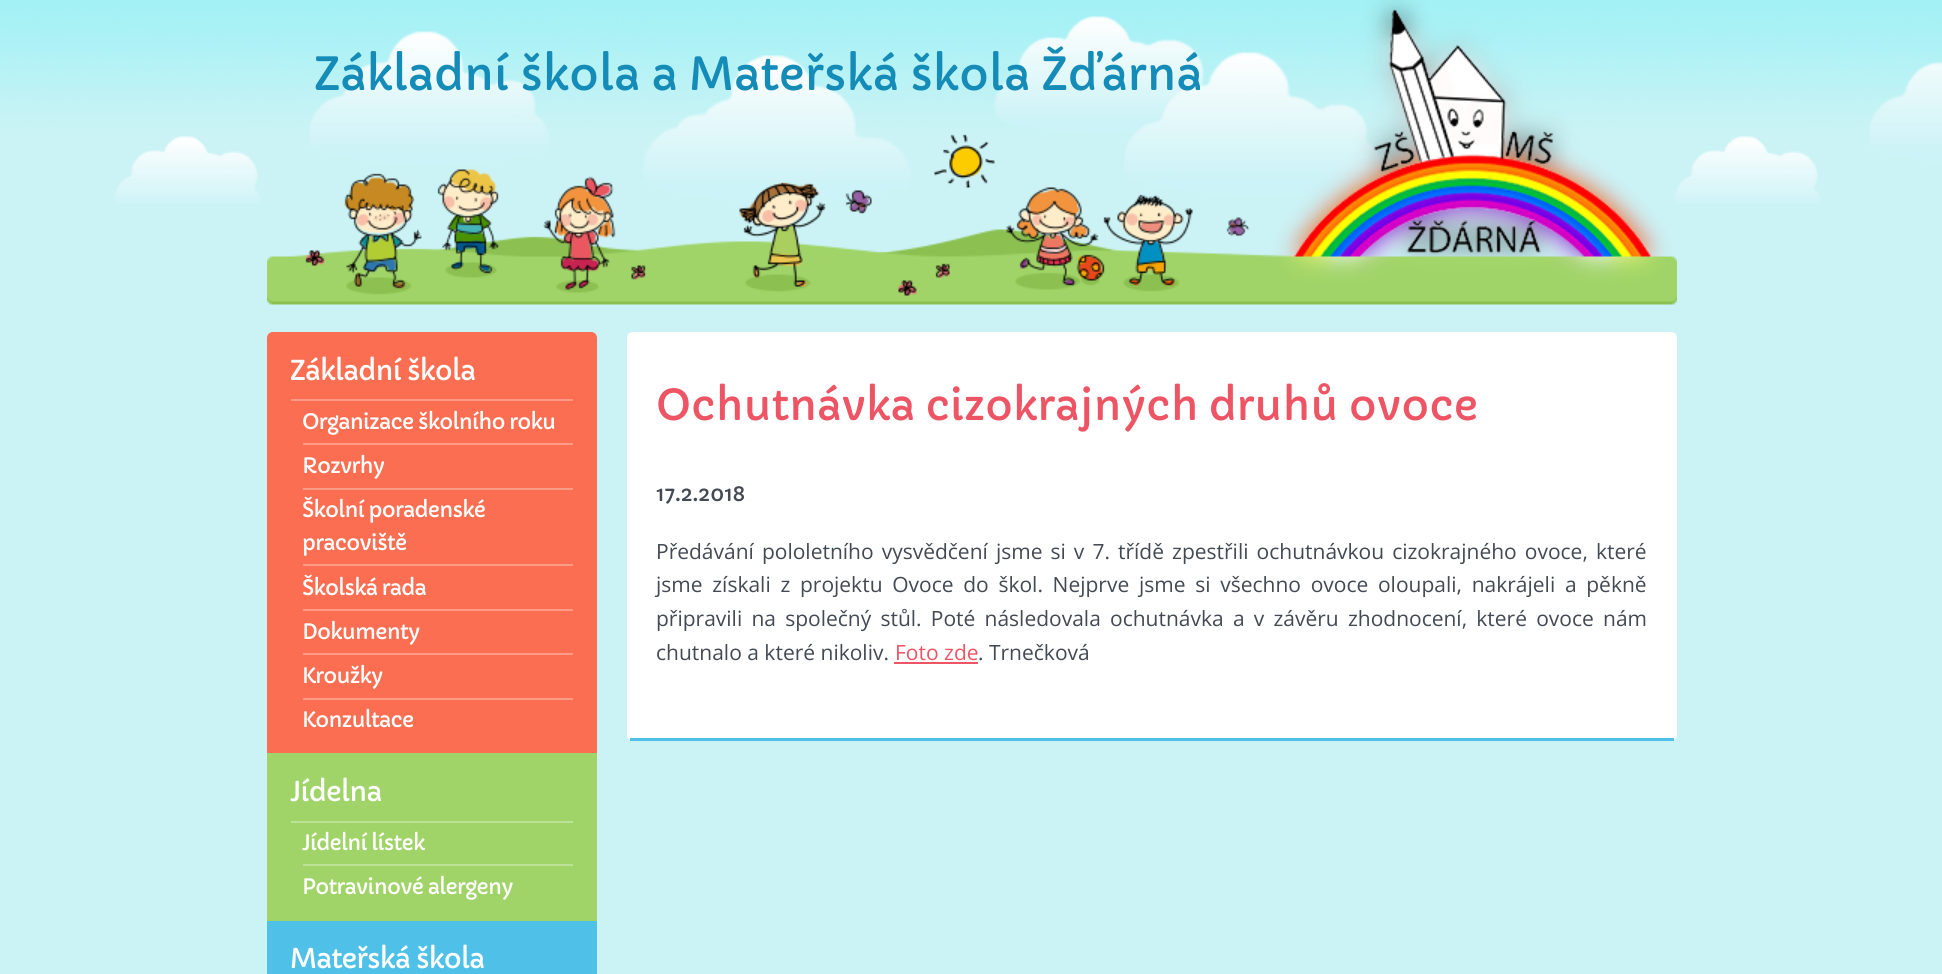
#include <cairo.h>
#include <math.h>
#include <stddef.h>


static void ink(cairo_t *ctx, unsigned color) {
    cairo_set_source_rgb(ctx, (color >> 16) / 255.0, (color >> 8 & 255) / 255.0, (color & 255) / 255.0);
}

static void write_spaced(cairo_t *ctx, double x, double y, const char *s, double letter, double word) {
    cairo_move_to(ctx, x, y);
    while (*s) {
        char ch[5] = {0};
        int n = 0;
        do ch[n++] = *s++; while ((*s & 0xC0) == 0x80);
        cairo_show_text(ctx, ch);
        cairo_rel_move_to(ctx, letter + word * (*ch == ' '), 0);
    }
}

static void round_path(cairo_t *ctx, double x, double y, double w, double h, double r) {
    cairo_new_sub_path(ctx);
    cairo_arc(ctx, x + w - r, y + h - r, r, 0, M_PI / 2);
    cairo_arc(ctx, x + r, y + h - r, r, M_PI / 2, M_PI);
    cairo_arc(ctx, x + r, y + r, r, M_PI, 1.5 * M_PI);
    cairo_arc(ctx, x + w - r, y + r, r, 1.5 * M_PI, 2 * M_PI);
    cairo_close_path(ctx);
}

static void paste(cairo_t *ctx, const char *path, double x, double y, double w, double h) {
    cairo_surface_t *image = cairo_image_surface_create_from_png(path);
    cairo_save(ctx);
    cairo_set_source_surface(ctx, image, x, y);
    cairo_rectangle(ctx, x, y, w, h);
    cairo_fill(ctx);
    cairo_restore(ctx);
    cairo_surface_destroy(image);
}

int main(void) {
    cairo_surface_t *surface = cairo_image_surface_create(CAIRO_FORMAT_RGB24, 1942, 974);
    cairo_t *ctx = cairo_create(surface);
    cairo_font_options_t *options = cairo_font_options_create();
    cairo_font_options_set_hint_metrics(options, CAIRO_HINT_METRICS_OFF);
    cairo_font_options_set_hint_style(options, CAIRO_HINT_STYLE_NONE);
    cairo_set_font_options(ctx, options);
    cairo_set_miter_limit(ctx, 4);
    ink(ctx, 0xCBF3F5);
    cairo_paint(ctx);
    paste(ctx, "media/1.png", 0, 0, 1942, 203);
    paste(ctx, "media/2.png", 267, 0, 1410, 305);
    cairo_select_font_face(ctx, "Capriola", CAIRO_FONT_SLANT_NORMAL, CAIRO_FONT_WEIGHT_NORMAL);
    cairo_set_font_size(ctx, 45);
    ink(ctx, 0x158BB7);
    cairo_move_to(ctx, 314, 90);
    cairo_show_text(ctx, "Základní škola a Mateřská škola Žďárná");
    ink(ctx, 0xFC6E51);
    cairo_new_path(ctx);
    cairo_move_to(ctx, 273, 332);
    cairo_line_to(ctx, 591, 332);
    cairo_curve_to(ctx, 594.5, 332, 597, 334.5, 597, 338);
    cairo_line_to(ctx, 597, 753);
    cairo_line_to(ctx, 267, 753);
    cairo_line_to(ctx, 267, 338);
    cairo_curve_to(ctx, 267, 334.5, 269.5, 332, 273, 332);
    cairo_close_path(ctx);
    cairo_fill(ctx);
    ink(ctx, 0xFD9A85);
    cairo_rectangle(ctx, 291, 399, 282, 2);
    cairo_fill(ctx);
    cairo_set_font_size(ctx, 27);
    ink(ctx, 0xFFFFFF);
    write_spaced(ctx, 290, 380, "Základní škola", -0.75, 0);
    ink(ctx, 0xFD9A85);
    cairo_rectangle(ctx, 303, 443, 270, 2);
    cairo_fill(ctx);
    cairo_set_font_size(ctx, 21);
    ink(ctx, 0xFFFFFF);
    write_spaced(ctx, 302, 429, "Organizace školního roku", -0.75, 0);
    ink(ctx, 0xFD9A85);
    cairo_rectangle(ctx, 303, 488, 270, 2);
    cairo_fill(ctx);
    ink(ctx, 0xFFFFFF);
    write_spaced(ctx, 302, 473, "Rozvrhy", -0.75, 0);
    ink(ctx, 0xFD9A85);
    cairo_rectangle(ctx, 303, 564, 270, 2);
    cairo_fill(ctx);
    ink(ctx, 0xFFFFFF);
    write_spaced(ctx, 302, 517, "Školní poradenské", -0.75, 0);
    write_spaced(ctx, 302, 550, "pracoviště", -0.75, 0);
    ink(ctx, 0xFD9A85);
    cairo_rectangle(ctx, 303, 609, 270, 2);
    cairo_fill(ctx);
    ink(ctx, 0xFFFFFF);
    write_spaced(ctx, 302, 595, "Školská rada", -0.75, 0);
    ink(ctx, 0xFD9A85);
    cairo_rectangle(ctx, 303, 653, 270, 2);
    cairo_fill(ctx);
    ink(ctx, 0xFFFFFF);
    write_spaced(ctx, 302, 639, "Dokumenty", -0.75, 0);
    ink(ctx, 0xFD9A85);
    cairo_rectangle(ctx, 303, 698, 270, 2);
    cairo_fill(ctx);
    ink(ctx, 0xFFFFFF);
    write_spaced(ctx, 302, 683, "Kroužky", -0.75, 0);
    write_spaced(ctx, 302, 727, "Konzultace", -0.75, 0);
    ink(ctx, 0xA0D468);
    cairo_rectangle(ctx, 267, 753, 330, 168);
    cairo_fill(ctx);
    ink(ctx, 0xBDE195);
    cairo_rectangle(ctx, 291, 821, 282, 2);
    cairo_fill(ctx);
    cairo_set_font_size(ctx, 27);
    ink(ctx, 0xFFFFFF);
    write_spaced(ctx, 290, 801, "Jídelna", -0.75, 0);
    ink(ctx, 0xBDE195);
    cairo_rectangle(ctx, 303, 864, 270, 2);
    cairo_fill(ctx);
    cairo_set_font_size(ctx, 21);
    ink(ctx, 0xFFFFFF);
    write_spaced(ctx, 302, 850, "Jídelní lístek", -0.75, 0);
    write_spaced(ctx, 302, 894, "Potravinové alergeny", -0.75, 0);
    ink(ctx, 0x4FC1E9);
    cairo_rectangle(ctx, 267, 921, 330, 53);
    cairo_fill(ctx);
    cairo_set_font_size(ctx, 27);
    ink(ctx, 0xFFFFFF);
    write_spaced(ctx, 290, 968, "Mateřská škola", -0.75, 0);
    round_path(ctx, 627, 332, 1050, 409, 6);
    cairo_fill(ctx);
    ink(ctx, 0x4FC1E9);
    cairo_rectangle(ctx, 630, 738, 1044, 3);
    cairo_fill(ctx);
    cairo_set_font_size(ctx, 42);
    ink(ctx, 0xED5565);
    cairo_move_to(ctx, 656, 420);
    cairo_show_text(ctx, "Ochutnávka cizokrajných druhů ovoce");
    cairo_set_font_size(ctx, 21);
    ink(ctx, 0x434A54);
    cairo_move_to(ctx, 656, 501);
    cairo_show_text(ctx, "17.2.2018");
    cairo_select_font_face(ctx, "Open Sans", CAIRO_FONT_SLANT_NORMAL, CAIRO_FONT_WEIGHT_NORMAL);
    write_spaced(ctx, 656, 559, "Předávání pololetního vysvědčení jsme si v 7. třídě zpestřili ochutnávkou cizokrajného ovoce, které", 0, 2.6);
    write_spaced(ctx, 656, 592, "jsme získali z projektu Ovoce do škol. Nejprve jsme si všechno ovoce oloupali, nakrájeli a pěkně", 0, 4.25);
    write_spaced(ctx, 656, 626, "připravili na společný stůl. Poté následovala ochutnávka a v závěru zhodnocení, které ovoce nám", 0, 3.75);
    cairo_move_to(ctx, 656, 660);
    cairo_show_text(ctx, "chutnalo a které nikoliv.");
    ink(ctx, 0xED5565);
    cairo_move_to(ctx, 895, 660);
    cairo_show_text(ctx, "Foto zde");
    cairo_rectangle(ctx, 894, 662, 84, 2);
    cairo_fill(ctx);
    ink(ctx, 0x434A54);
    cairo_move_to(ctx, 978, 660);
    cairo_show_text(ctx, ". Trnečková");
    cairo_surface_write_to_png(surface, "image.png");
    cairo_font_options_destroy(options);
    cairo_destroy(ctx);
    cairo_surface_destroy(surface);
    return 0;
}
